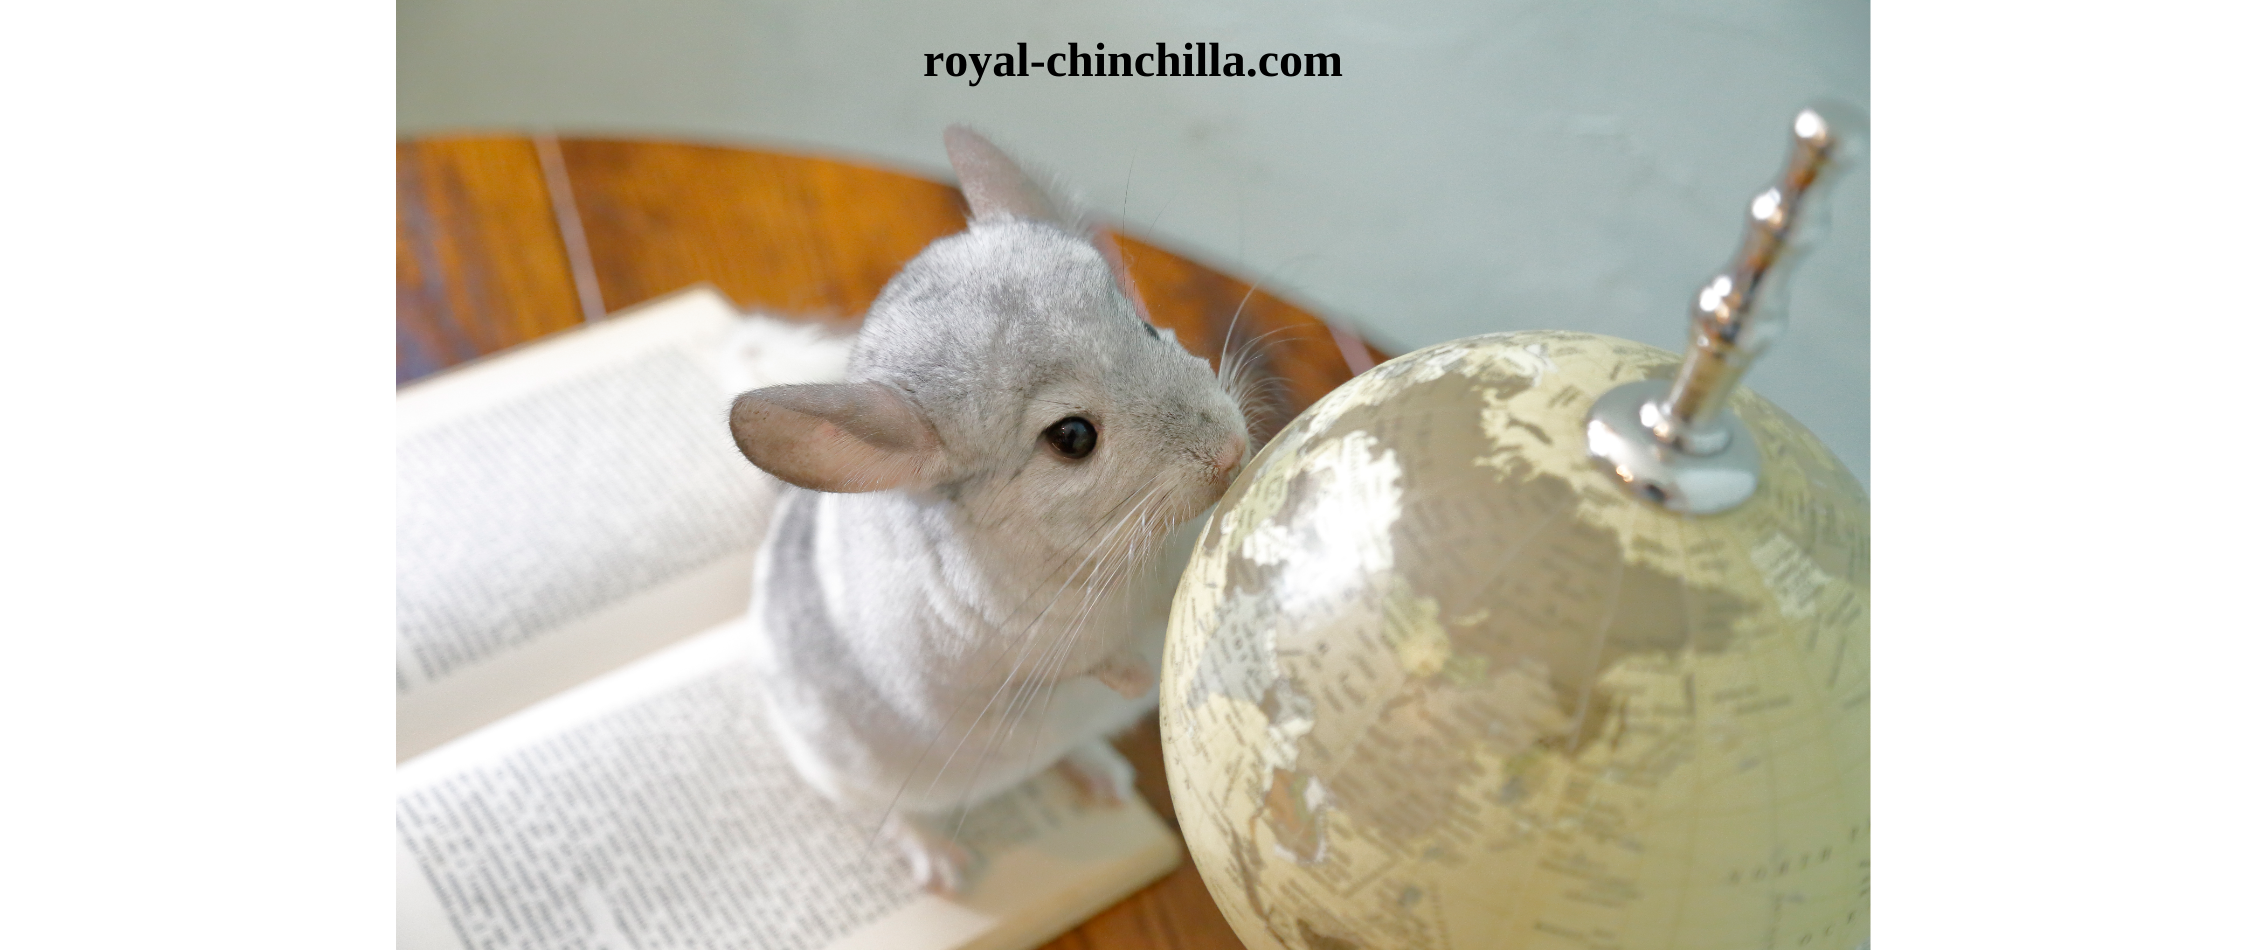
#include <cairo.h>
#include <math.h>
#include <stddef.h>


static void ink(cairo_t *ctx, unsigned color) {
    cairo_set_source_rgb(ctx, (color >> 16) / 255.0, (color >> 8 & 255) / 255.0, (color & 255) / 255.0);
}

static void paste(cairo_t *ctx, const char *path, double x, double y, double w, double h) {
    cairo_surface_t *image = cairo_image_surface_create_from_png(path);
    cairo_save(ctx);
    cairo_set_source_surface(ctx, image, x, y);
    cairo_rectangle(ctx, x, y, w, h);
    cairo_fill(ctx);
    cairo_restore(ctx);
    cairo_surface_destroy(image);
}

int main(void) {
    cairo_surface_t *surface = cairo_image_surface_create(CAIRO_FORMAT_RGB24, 2264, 950);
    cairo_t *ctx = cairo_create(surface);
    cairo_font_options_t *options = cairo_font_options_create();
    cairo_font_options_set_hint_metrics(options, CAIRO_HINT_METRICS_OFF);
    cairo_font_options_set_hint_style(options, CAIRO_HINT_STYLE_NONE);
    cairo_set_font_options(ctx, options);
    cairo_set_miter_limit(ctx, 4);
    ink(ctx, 0xFFFFFF);
    cairo_paint(ctx);
    paste(ctx, "media/1.png", 396, 0, 1475, 950);
    cairo_select_font_face(ctx, "Liberation Serif", CAIRO_FONT_SLANT_NORMAL, CAIRO_FONT_WEIGHT_BOLD);
    cairo_set_font_size(ctx, 48);
    ink(ctx, 0x000000);
    cairo_move_to(ctx, 923, 76);
    cairo_show_text(ctx, "royal-chinchilla.com");
    cairo_surface_write_to_png(surface, "image.png");
    cairo_font_options_destroy(options);
    cairo_destroy(ctx);
    cairo_surface_destroy(surface);
    return 0;
}
